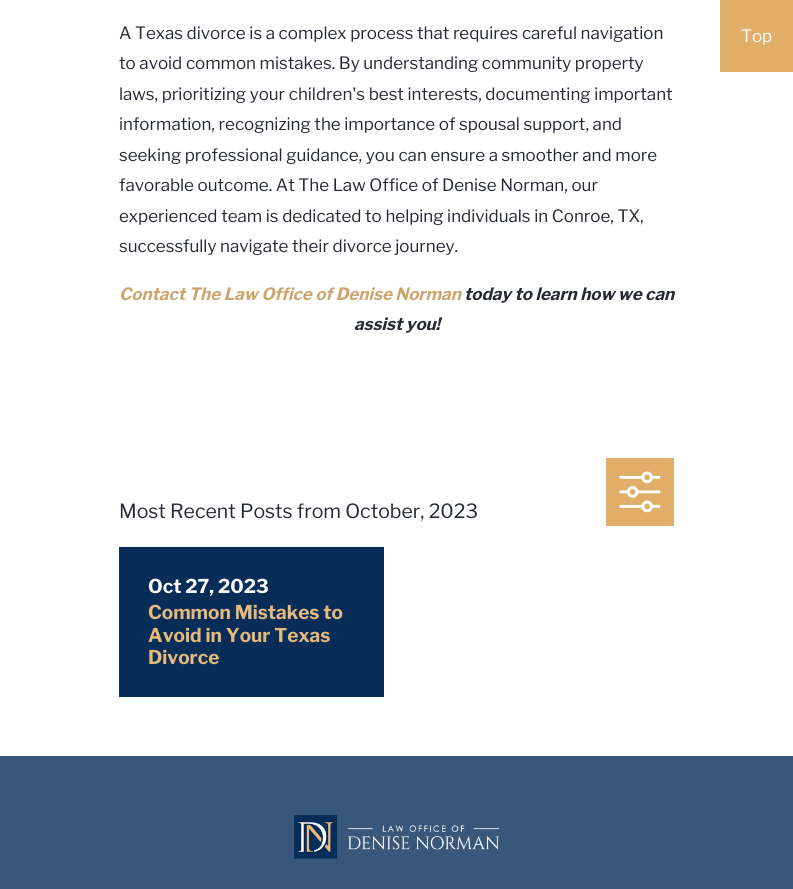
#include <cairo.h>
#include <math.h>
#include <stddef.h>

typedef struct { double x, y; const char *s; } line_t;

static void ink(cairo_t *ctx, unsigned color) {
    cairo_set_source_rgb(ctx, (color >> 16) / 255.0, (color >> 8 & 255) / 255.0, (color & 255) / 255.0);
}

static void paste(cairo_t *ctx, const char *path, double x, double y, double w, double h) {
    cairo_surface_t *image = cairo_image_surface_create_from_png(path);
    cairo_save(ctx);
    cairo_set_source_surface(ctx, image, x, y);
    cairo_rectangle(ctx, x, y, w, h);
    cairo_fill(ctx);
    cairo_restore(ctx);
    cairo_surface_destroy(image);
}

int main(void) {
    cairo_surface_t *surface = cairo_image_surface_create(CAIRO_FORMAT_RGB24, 793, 889);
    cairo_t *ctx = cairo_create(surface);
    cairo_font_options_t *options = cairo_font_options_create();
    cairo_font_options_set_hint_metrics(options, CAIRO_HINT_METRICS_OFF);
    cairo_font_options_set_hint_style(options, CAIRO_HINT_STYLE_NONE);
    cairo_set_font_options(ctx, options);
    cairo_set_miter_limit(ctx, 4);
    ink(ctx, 0xFFFFFF);
    cairo_paint(ctx);
    cairo_select_font_face(ctx, "Libre Franklin", CAIRO_FONT_SLANT_NORMAL, CAIRO_FONT_WEIGHT_NORMAL);
    cairo_set_font_size(ctx, 16.95);
    ink(ctx, 0x252933);
    {
        static const line_t items[] = {
            {119, 39, "A Texas divorce is a complex process that requires careful navigation"},
            {119, 69, "to avoid common mistakes. By understanding community property"},
            {119, 100, "laws, prioritizing your children's best interests, documenting important"},
            {119, 130, "information, recognizing the importance of spousal support, and"},
            {119, 161, "seeking professional guidance, you can ensure a smoother and more"},
            {119, 191, "favorable outcome. At The Law Office of Denise Norman, our"},
            {119, 222, "experienced team is dedicated to helping individuals in Conroe, TX,"},
            {119, 252, "successfully navigate their divorce journey."},
        };
        for (size_t i = 0; i < sizeof items / sizeof *items; i++) {
            cairo_move_to(ctx, items[i].x, items[i].y);
            cairo_show_text(ctx, items[i].s);
        }
    }
    cairo_select_font_face(ctx, "Libre Franklin", CAIRO_FONT_SLANT_ITALIC, CAIRO_FONT_WEIGHT_BOLD);
    ink(ctx, 0xCCA46C);
    cairo_move_to(ctx, 119, 300);
    cairo_show_text(ctx, "Contact The Law Office of Denise Norman");
    ink(ctx, 0x252933);
    cairo_move_to(ctx, 464, 300);
    cairo_show_text(ctx, "today to learn how we can");
    cairo_move_to(ctx, 354, 330);
    cairo_show_text(ctx, "assist you!");
    cairo_select_font_face(ctx, "Libre Franklin", CAIRO_FONT_SLANT_NORMAL, CAIRO_FONT_WEIGHT_NORMAL);
    cairo_set_font_size(ctx, 19.5);
    cairo_move_to(ctx, 119, 518);
    cairo_show_text(ctx, "Most Recent Posts from October, 2023");
    ink(ctx, 0xE0AE69);
    cairo_rectangle(ctx, 606, 458, 68, 68);
    cairo_fill(ctx);
    paste(ctx, "media/1.png", 619, 471, 42, 42);
    ink(ctx, 0x082D59);
    cairo_rectangle(ctx, 119, 547, 265, 150);
    cairo_fill(ctx);
    cairo_select_font_face(ctx, "Libre Franklin", CAIRO_FONT_SLANT_NORMAL, CAIRO_FONT_WEIGHT_BOLD);
    cairo_set_font_size(ctx, 19);
    ink(ctx, 0xFFFFFF);
    cairo_move_to(ctx, 148, 593);
    cairo_show_text(ctx, "Oct 27, 2023");
    ink(ctx, 0xE7B97A);
    {
        static const line_t items[] = {
            {148, 619, "Common Mistakes to"},
            {148, 642, "Avoid in Your Texas"},
            {148, 664, "Divorce"},
        };
        for (size_t i = 0; i < sizeof items / sizeof *items; i++) {
            cairo_move_to(ctx, items[i].x, items[i].y);
            cairo_show_text(ctx, items[i].s);
        }
    }
    ink(ctx, 0xE0AE69);
    cairo_rectangle(ctx, 720, 0, 73, 72);
    cairo_fill(ctx);
    cairo_select_font_face(ctx, "Libre Franklin", CAIRO_FONT_SLANT_NORMAL, CAIRO_FONT_WEIGHT_NORMAL);
    cairo_set_font_size(ctx, 16.95);
    ink(ctx, 0xFFFFFF);
    cairo_move_to(ctx, 741, 42);
    cairo_show_text(ctx, "Top");
    ink(ctx, 0x38577A);
    cairo_rectangle(ctx, 0, 756, 793, 133);
    cairo_fill(ctx);
    paste(ctx, "media/2.png", 294, 815, 205, 44);
    cairo_surface_write_to_png(surface, "image.png");
    cairo_font_options_destroy(options);
    cairo_destroy(ctx);
    cairo_surface_destroy(surface);
    return 0;
}
